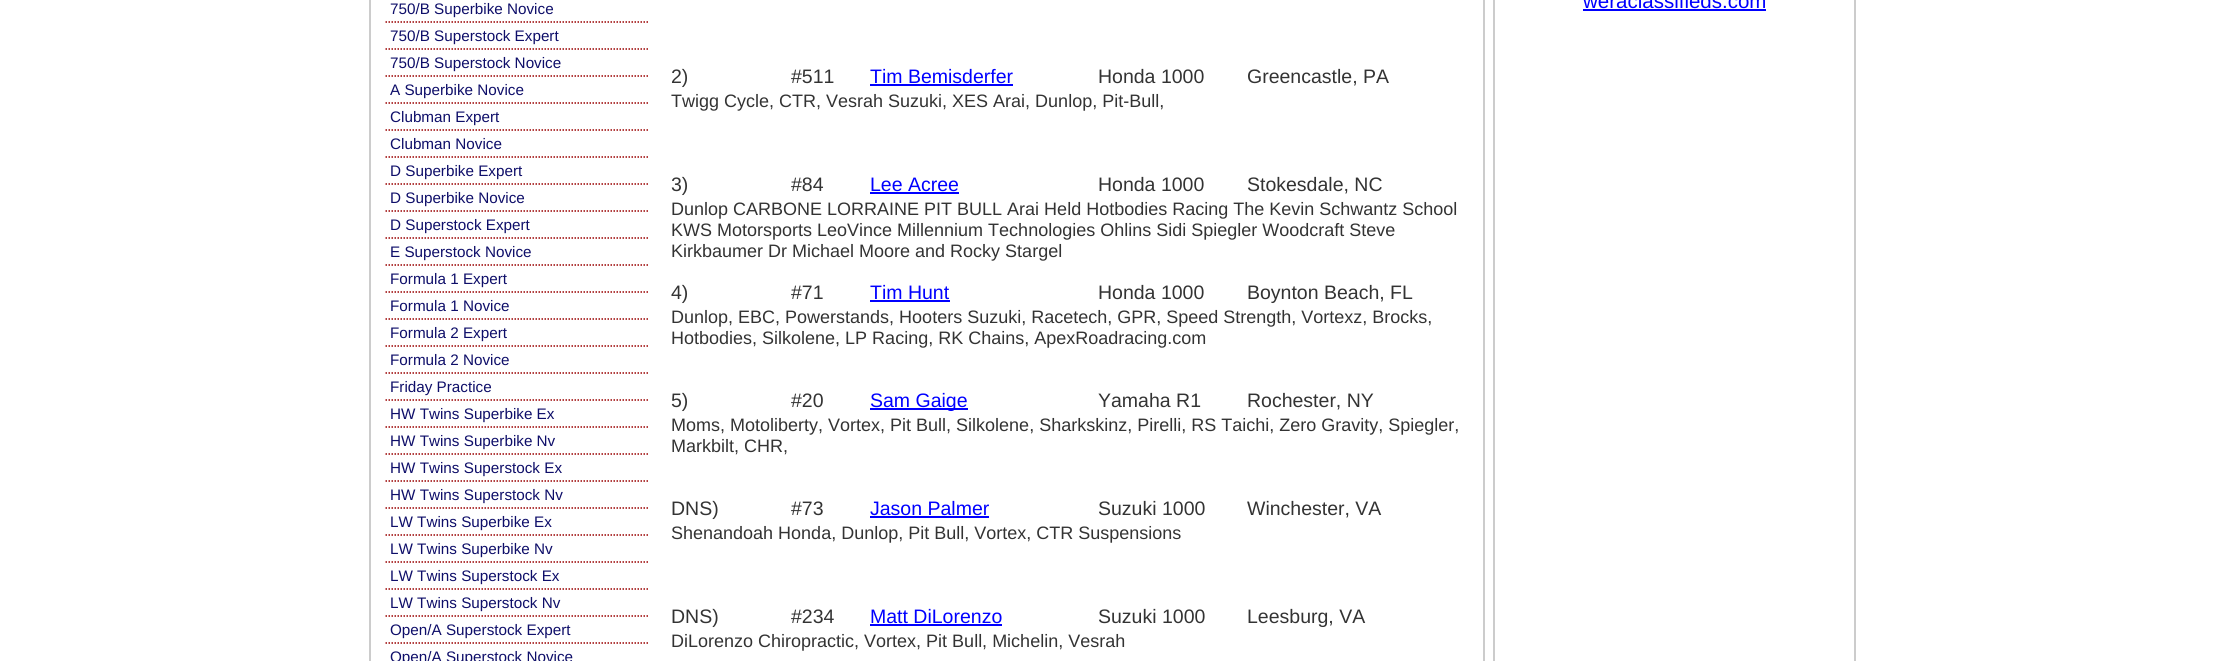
#include <cairo.h>
#include <math.h>
#include <stddef.h>

typedef struct { double x, y; const char *s; } line_t;

static void ink(cairo_t *ctx, unsigned color) {
    cairo_set_source_rgb(ctx, (color >> 16) / 255.0, (color >> 8 & 255) / 255.0, (color & 255) / 255.0);
}

int main(void) {
    cairo_surface_t *surface = cairo_image_surface_create(CAIRO_FORMAT_RGB24, 2226, 661);
    cairo_t *ctx = cairo_create(surface);
    cairo_font_options_t *options = cairo_font_options_create();
    cairo_font_options_set_hint_metrics(options, CAIRO_HINT_METRICS_OFF);
    cairo_font_options_set_hint_style(options, CAIRO_HINT_STYLE_NONE);
    cairo_set_font_options(ctx, options);
    cairo_set_miter_limit(ctx, 4);
    ink(ctx, 0xFFFFFF);
    cairo_paint(ctx);
    cairo_rectangle(ctx, 370, -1, 1114, 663);
    ink(ctx, 0xCCCCCC);
    cairo_stroke(ctx);
    cairo_new_path(ctx);
    cairo_move_to(ctx, 385.5, 22);
    cairo_line_to(ctx, 648, 22);
    ink(ctx, 0x990000);
    cairo_set_line_width(ctx, 1.5);
    cairo_set_dash(ctx, (double[]){1.5, 1.5}, 2, 0);
    cairo_stroke(ctx);
    cairo_select_font_face(ctx, "Liberation Sans", CAIRO_FONT_SLANT_NORMAL, CAIRO_FONT_WEIGHT_NORMAL);
    cairo_set_font_size(ctx, 15.25);
    ink(ctx, 0x0E0E69);
    cairo_move_to(ctx, 390, 14);
    cairo_show_text(ctx, "750/B Superbike Novice");
    cairo_new_path(ctx);
    cairo_move_to(ctx, 385.5, 49);
    cairo_line_to(ctx, 648, 49);
    ink(ctx, 0x990000);
    cairo_stroke(ctx);
    ink(ctx, 0x0E0E69);
    cairo_move_to(ctx, 390, 41);
    cairo_show_text(ctx, "750/B Superstock Expert");
    cairo_new_path(ctx);
    cairo_move_to(ctx, 385.5, 76);
    cairo_line_to(ctx, 648, 76);
    ink(ctx, 0x990000);
    cairo_stroke(ctx);
    ink(ctx, 0x0E0E69);
    cairo_move_to(ctx, 390, 68);
    cairo_show_text(ctx, "750/B Superstock Novice");
    cairo_new_path(ctx);
    cairo_move_to(ctx, 385.5, 103);
    cairo_line_to(ctx, 648, 103);
    ink(ctx, 0x990000);
    cairo_stroke(ctx);
    ink(ctx, 0x0E0E69);
    cairo_move_to(ctx, 390, 95);
    cairo_show_text(ctx, "A Superbike Novice");
    cairo_new_path(ctx);
    cairo_move_to(ctx, 385.5, 130);
    cairo_line_to(ctx, 648, 130);
    ink(ctx, 0x990000);
    cairo_stroke(ctx);
    ink(ctx, 0x0E0E69);
    cairo_move_to(ctx, 390, 122);
    cairo_show_text(ctx, "Clubman Expert");
    cairo_new_path(ctx);
    cairo_move_to(ctx, 385.5, 157);
    cairo_line_to(ctx, 648, 157);
    ink(ctx, 0x990000);
    cairo_stroke(ctx);
    ink(ctx, 0x0E0E69);
    cairo_move_to(ctx, 390, 149);
    cairo_show_text(ctx, "Clubman Novice");
    cairo_new_path(ctx);
    cairo_move_to(ctx, 385.5, 184);
    cairo_line_to(ctx, 648, 184);
    ink(ctx, 0x990000);
    cairo_stroke(ctx);
    ink(ctx, 0x0E0E69);
    cairo_move_to(ctx, 390, 176);
    cairo_show_text(ctx, "D Superbike Expert");
    cairo_new_path(ctx);
    cairo_move_to(ctx, 385.5, 211);
    cairo_line_to(ctx, 648, 211);
    ink(ctx, 0x990000);
    cairo_stroke(ctx);
    ink(ctx, 0x0E0E69);
    cairo_move_to(ctx, 390, 203);
    cairo_show_text(ctx, "D Superbike Novice");
    cairo_new_path(ctx);
    cairo_move_to(ctx, 385.5, 238);
    cairo_line_to(ctx, 648, 238);
    ink(ctx, 0x990000);
    cairo_stroke(ctx);
    ink(ctx, 0x0E0E69);
    cairo_move_to(ctx, 390, 230);
    cairo_show_text(ctx, "D Superstock Expert");
    cairo_new_path(ctx);
    cairo_move_to(ctx, 385.5, 265);
    cairo_line_to(ctx, 648, 265);
    ink(ctx, 0x990000);
    cairo_stroke(ctx);
    ink(ctx, 0x0E0E69);
    cairo_move_to(ctx, 390, 257);
    cairo_show_text(ctx, "E Superstock Novice");
    cairo_new_path(ctx);
    cairo_move_to(ctx, 385.5, 292);
    cairo_line_to(ctx, 648, 292);
    ink(ctx, 0x990000);
    cairo_stroke(ctx);
    ink(ctx, 0x0E0E69);
    cairo_move_to(ctx, 390, 284);
    cairo_show_text(ctx, "Formula 1 Expert");
    cairo_new_path(ctx);
    cairo_move_to(ctx, 385.5, 319);
    cairo_line_to(ctx, 648, 319);
    ink(ctx, 0x990000);
    cairo_stroke(ctx);
    ink(ctx, 0x0E0E69);
    cairo_move_to(ctx, 390, 311);
    cairo_show_text(ctx, "Formula 1 Novice");
    cairo_new_path(ctx);
    cairo_move_to(ctx, 385.5, 346);
    cairo_line_to(ctx, 648, 346);
    ink(ctx, 0x990000);
    cairo_stroke(ctx);
    ink(ctx, 0x0E0E69);
    cairo_move_to(ctx, 390, 338);
    cairo_show_text(ctx, "Formula 2 Expert");
    cairo_new_path(ctx);
    cairo_move_to(ctx, 385.5, 373);
    cairo_line_to(ctx, 648, 373);
    ink(ctx, 0x990000);
    cairo_stroke(ctx);
    ink(ctx, 0x0E0E69);
    cairo_move_to(ctx, 390, 365);
    cairo_show_text(ctx, "Formula 2 Novice");
    cairo_new_path(ctx);
    cairo_move_to(ctx, 385.5, 400);
    cairo_line_to(ctx, 648, 400);
    ink(ctx, 0x990000);
    cairo_stroke(ctx);
    ink(ctx, 0x0E0E69);
    cairo_move_to(ctx, 390, 392);
    cairo_show_text(ctx, "Friday Practice");
    cairo_new_path(ctx);
    cairo_move_to(ctx, 385.5, 427);
    cairo_line_to(ctx, 648, 427);
    ink(ctx, 0x990000);
    cairo_stroke(ctx);
    ink(ctx, 0x0E0E69);
    cairo_move_to(ctx, 390, 419);
    cairo_show_text(ctx, "HW Twins Superbike Ex");
    cairo_new_path(ctx);
    cairo_move_to(ctx, 385.5, 454);
    cairo_line_to(ctx, 648, 454);
    ink(ctx, 0x990000);
    cairo_stroke(ctx);
    ink(ctx, 0x0E0E69);
    cairo_move_to(ctx, 390, 446);
    cairo_show_text(ctx, "HW Twins Superbike Nv");
    cairo_new_path(ctx);
    cairo_move_to(ctx, 385.5, 481);
    cairo_line_to(ctx, 648, 481);
    ink(ctx, 0x990000);
    cairo_stroke(ctx);
    ink(ctx, 0x0E0E69);
    cairo_move_to(ctx, 390, 473);
    cairo_show_text(ctx, "HW Twins Superstock Ex");
    cairo_new_path(ctx);
    cairo_move_to(ctx, 385.5, 508);
    cairo_line_to(ctx, 648, 508);
    ink(ctx, 0x990000);
    cairo_stroke(ctx);
    ink(ctx, 0x0E0E69);
    cairo_move_to(ctx, 390, 500);
    cairo_show_text(ctx, "HW Twins Superstock Nv");
    cairo_new_path(ctx);
    cairo_move_to(ctx, 385.5, 535);
    cairo_line_to(ctx, 648, 535);
    ink(ctx, 0x990000);
    cairo_stroke(ctx);
    ink(ctx, 0x0E0E69);
    cairo_move_to(ctx, 390, 527);
    cairo_show_text(ctx, "LW Twins Superbike Ex");
    cairo_new_path(ctx);
    cairo_move_to(ctx, 385.5, 562);
    cairo_line_to(ctx, 648, 562);
    ink(ctx, 0x990000);
    cairo_stroke(ctx);
    ink(ctx, 0x0E0E69);
    cairo_move_to(ctx, 390, 554);
    cairo_show_text(ctx, "LW Twins Superbike Nv");
    cairo_new_path(ctx);
    cairo_move_to(ctx, 385.5, 589);
    cairo_line_to(ctx, 648, 589);
    ink(ctx, 0x990000);
    cairo_stroke(ctx);
    ink(ctx, 0x0E0E69);
    cairo_move_to(ctx, 390, 581);
    cairo_show_text(ctx, "LW Twins Superstock Ex");
    cairo_new_path(ctx);
    cairo_move_to(ctx, 385.5, 616);
    cairo_line_to(ctx, 648, 616);
    ink(ctx, 0x990000);
    cairo_stroke(ctx);
    ink(ctx, 0x0E0E69);
    cairo_move_to(ctx, 390, 608);
    cairo_show_text(ctx, "LW Twins Superstock Nv");
    cairo_new_path(ctx);
    cairo_move_to(ctx, 385.5, 643);
    cairo_line_to(ctx, 648, 643);
    ink(ctx, 0x990000);
    cairo_stroke(ctx);
    ink(ctx, 0x0E0E69);
    cairo_move_to(ctx, 390, 635);
    cairo_show_text(ctx, "Open/A Superstock Expert");
    cairo_move_to(ctx, 390, 662);
    cairo_show_text(ctx, "Open/A Superstock Novice");
    cairo_set_font_size(ctx, 19.5);
    ink(ctx, 0x333333);
    cairo_move_to(ctx, 671, 83);
    cairo_show_text(ctx, "2)");
    cairo_move_to(ctx, 791, 83);
    cairo_show_text(ctx, "#511");
    ink(ctx, 0x0000FF);
    cairo_move_to(ctx, 870, 83);
    cairo_show_text(ctx, "Tim Bemisderfer");
    cairo_rectangle(ctx, 870, 84, 143, 2);
    cairo_fill(ctx);
    ink(ctx, 0x333333);
    cairo_move_to(ctx, 1098, 83);
    cairo_show_text(ctx, "Honda 1000");
    cairo_move_to(ctx, 1247, 83);
    cairo_show_text(ctx, "Greencastle, PA");
    cairo_set_font_size(ctx, 18);
    cairo_move_to(ctx, 671, 107);
    cairo_show_text(ctx, "Twigg Cycle, CTR, Vesrah Suzuki, XES Arai, Dunlop, Pit-Bull,");
    cairo_set_font_size(ctx, 19.5);
    cairo_move_to(ctx, 671, 191);
    cairo_show_text(ctx, "3)");
    cairo_move_to(ctx, 791, 191);
    cairo_show_text(ctx, "#84");
    ink(ctx, 0x0000FF);
    cairo_move_to(ctx, 870, 191);
    cairo_show_text(ctx, "Lee Acree");
    cairo_rectangle(ctx, 870, 192, 89, 2);
    cairo_fill(ctx);
    ink(ctx, 0x333333);
    cairo_move_to(ctx, 1098, 191);
    cairo_show_text(ctx, "Honda 1000");
    cairo_move_to(ctx, 1247, 191);
    cairo_show_text(ctx, "Stokesdale, NC");
    cairo_set_font_size(ctx, 18);
    {
        static const line_t items[] = {
            {671, 215, "Dunlop CARBONE LORRAINE PIT BULL Arai Held Hotbodies Racing The Kevin Schwantz School"},
            {671, 236, "KWS Motorsports LeoVince Millennium Technologies Ohlins Sidi Spiegler Woodcraft Steve"},
            {671, 257, "Kirkbaumer Dr Michael Moore and Rocky Stargel"},
        };
        for (size_t i = 0; i < sizeof items / sizeof *items; i++) {
            cairo_move_to(ctx, items[i].x, items[i].y);
            cairo_show_text(ctx, items[i].s);
        }
    }
    cairo_set_font_size(ctx, 19.5);
    cairo_move_to(ctx, 671, 299);
    cairo_show_text(ctx, "4)");
    cairo_move_to(ctx, 791, 299);
    cairo_show_text(ctx, "#71");
    ink(ctx, 0x0000FF);
    cairo_move_to(ctx, 870, 299);
    cairo_show_text(ctx, "Tim Hunt");
    cairo_rectangle(ctx, 870, 300, 80, 2);
    cairo_fill(ctx);
    ink(ctx, 0x333333);
    cairo_move_to(ctx, 1098, 299);
    cairo_show_text(ctx, "Honda 1000");
    cairo_move_to(ctx, 1247, 299);
    cairo_show_text(ctx, "Boynton Beach, FL");
    cairo_set_font_size(ctx, 18);
    cairo_move_to(ctx, 671, 323);
    cairo_show_text(ctx, "Dunlop, EBC, Powerstands, Hooters Suzuki, Racetech, GPR, Speed Strength, Vortexz, Brocks,");
    cairo_move_to(ctx, 671, 344);
    cairo_show_text(ctx, "Hotbodies, Silkolene, LP Racing, RK Chains, ApexRoadracing.com");
    cairo_set_font_size(ctx, 19.5);
    cairo_move_to(ctx, 671, 407);
    cairo_show_text(ctx, "5)");
    cairo_move_to(ctx, 791, 407);
    cairo_show_text(ctx, "#20");
    ink(ctx, 0x0000FF);
    cairo_rectangle(ctx, 870, 408, 98, 2);
    cairo_fill(ctx);
    cairo_move_to(ctx, 870, 407);
    cairo_show_text(ctx, "Sam Gaige");
    ink(ctx, 0x333333);
    cairo_move_to(ctx, 1098, 407);
    cairo_show_text(ctx, "Yamaha R1");
    cairo_move_to(ctx, 1247, 407);
    cairo_show_text(ctx, "Rochester, NY");
    cairo_set_font_size(ctx, 18);
    cairo_move_to(ctx, 671, 431);
    cairo_show_text(ctx, "Moms, Motoliberty, Vortex, Pit Bull, Silkolene, Sharkskinz, Pirelli, RS Taichi, Zero Gravity, Spiegler,");
    cairo_move_to(ctx, 671, 452);
    cairo_show_text(ctx, "Markbilt, CHR,");
    cairo_set_font_size(ctx, 19.5);
    cairo_move_to(ctx, 671, 515);
    cairo_show_text(ctx, "DNS)");
    cairo_move_to(ctx, 791, 515);
    cairo_show_text(ctx, "#73");
    ink(ctx, 0x0000FF);
    cairo_move_to(ctx, 870, 515);
    cairo_show_text(ctx, "Jason Palmer");
    cairo_rectangle(ctx, 870, 516, 119, 2);
    cairo_fill(ctx);
    ink(ctx, 0x333333);
    cairo_move_to(ctx, 1098, 515);
    cairo_show_text(ctx, "Suzuki 1000");
    cairo_move_to(ctx, 1247, 515);
    cairo_show_text(ctx, "Winchester, VA");
    cairo_set_font_size(ctx, 18);
    cairo_move_to(ctx, 671, 539);
    cairo_show_text(ctx, "Shenandoah Honda, Dunlop, Pit Bull, Vortex, CTR Suspensions");
    cairo_set_font_size(ctx, 19.5);
    cairo_move_to(ctx, 671, 623);
    cairo_show_text(ctx, "DNS)");
    cairo_move_to(ctx, 791, 623);
    cairo_show_text(ctx, "#234");
    ink(ctx, 0x0000FF);
    cairo_move_to(ctx, 870, 623);
    cairo_show_text(ctx, "Matt DiLorenzo");
    cairo_rectangle(ctx, 870, 624, 132, 2);
    cairo_fill(ctx);
    ink(ctx, 0x333333);
    cairo_move_to(ctx, 1098, 623);
    cairo_show_text(ctx, "Suzuki 1000");
    cairo_move_to(ctx, 1247, 623);
    cairo_show_text(ctx, "Leesburg, VA");
    cairo_set_font_size(ctx, 18);
    cairo_move_to(ctx, 671, 647);
    cairo_show_text(ctx, "DiLorenzo Chiropractic, Vortex, Pit Bull, Michelin, Vesrah");
    cairo_rectangle(ctx, 1494, -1, 361, 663);
    ink(ctx, 0xCCCCCC);
    cairo_set_line_width(ctx, 2);
    cairo_set_dash(ctx, NULL, 0, 0);
    cairo_stroke(ctx);
    cairo_set_font_size(ctx, 20.5);
    ink(ctx, 0x0000FF);
    cairo_move_to(ctx, 1583, 8);
    cairo_show_text(ctx, "weraclassifieds.com");
    cairo_rectangle(ctx, 1583, 9, 183, 2);
    cairo_fill(ctx);
    cairo_surface_write_to_png(surface, "image.png");
    cairo_font_options_destroy(options);
    cairo_destroy(ctx);
    cairo_surface_destroy(surface);
    return 0;
}
